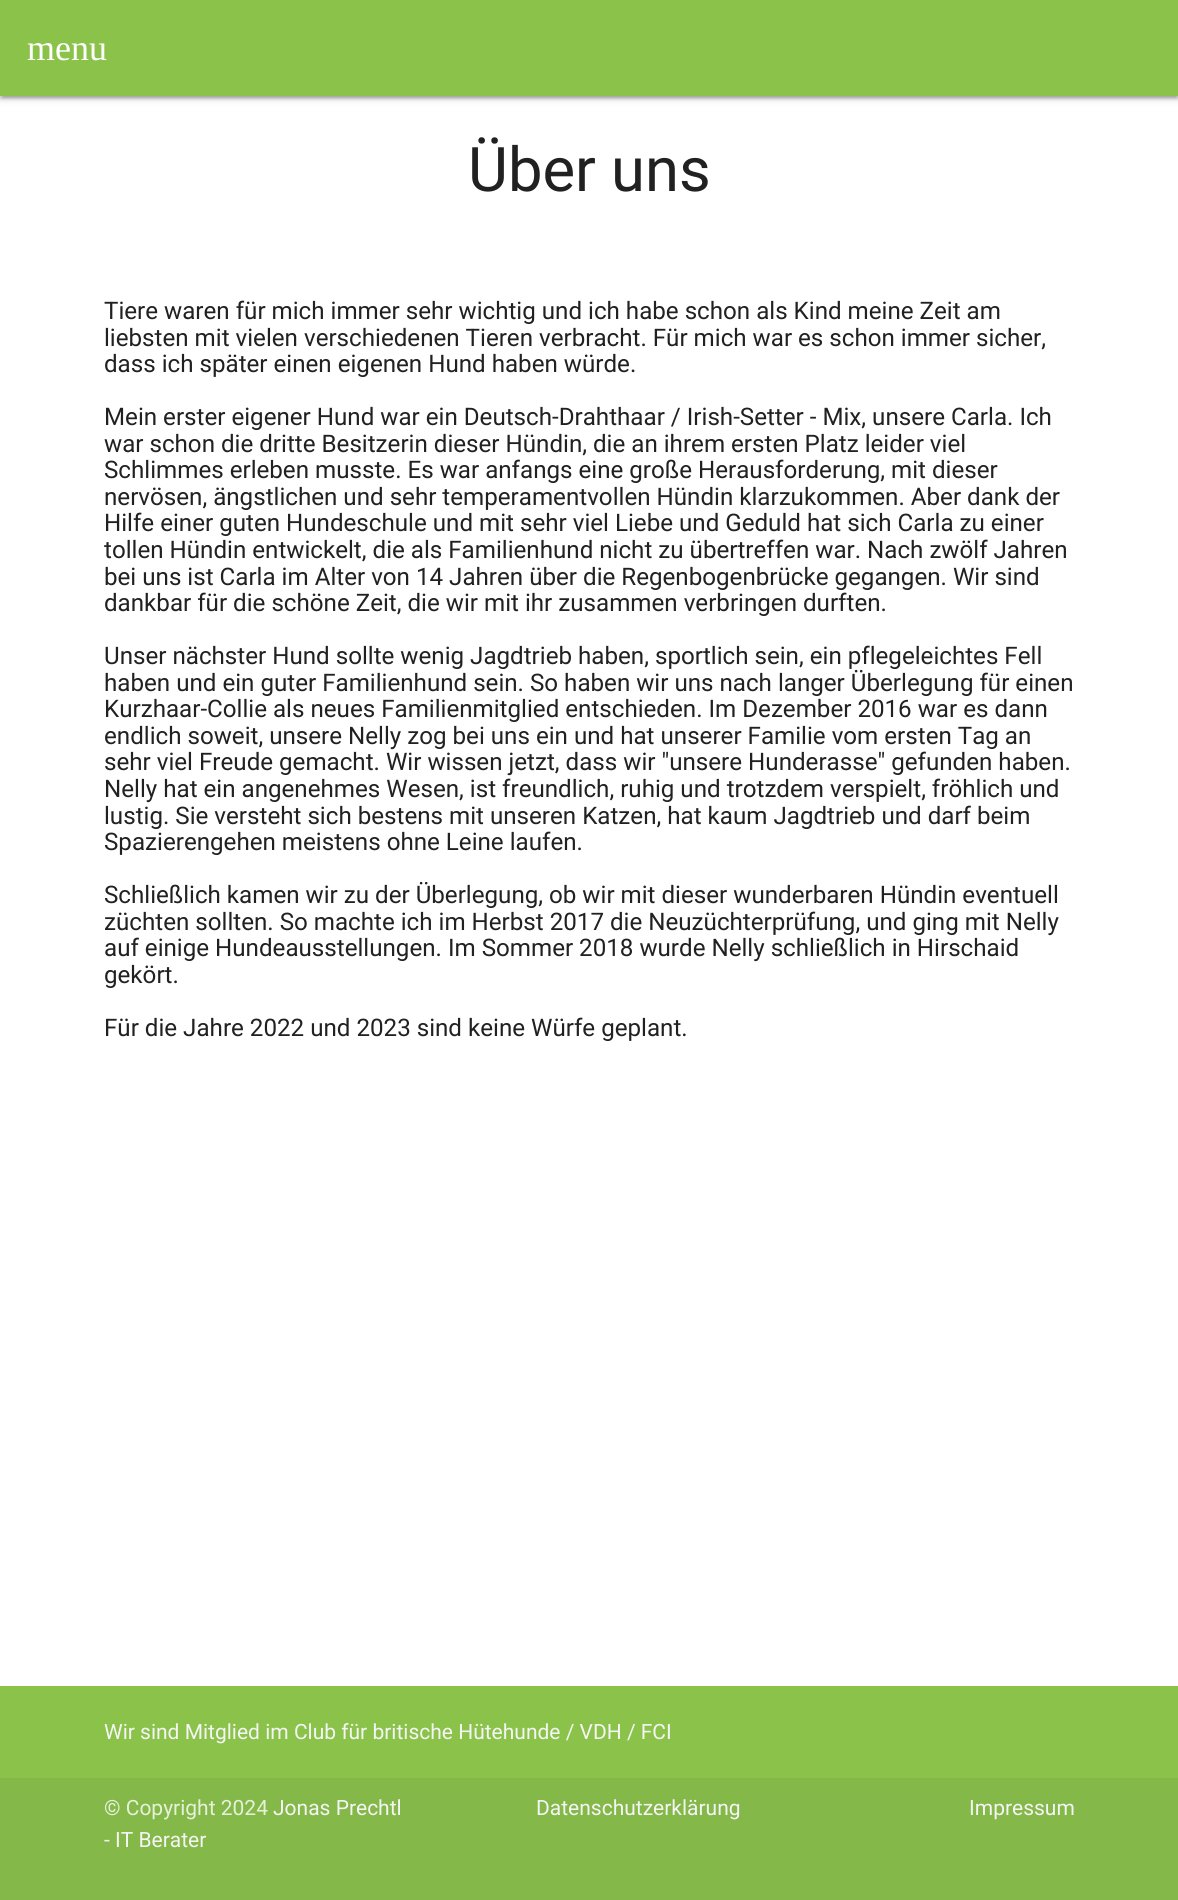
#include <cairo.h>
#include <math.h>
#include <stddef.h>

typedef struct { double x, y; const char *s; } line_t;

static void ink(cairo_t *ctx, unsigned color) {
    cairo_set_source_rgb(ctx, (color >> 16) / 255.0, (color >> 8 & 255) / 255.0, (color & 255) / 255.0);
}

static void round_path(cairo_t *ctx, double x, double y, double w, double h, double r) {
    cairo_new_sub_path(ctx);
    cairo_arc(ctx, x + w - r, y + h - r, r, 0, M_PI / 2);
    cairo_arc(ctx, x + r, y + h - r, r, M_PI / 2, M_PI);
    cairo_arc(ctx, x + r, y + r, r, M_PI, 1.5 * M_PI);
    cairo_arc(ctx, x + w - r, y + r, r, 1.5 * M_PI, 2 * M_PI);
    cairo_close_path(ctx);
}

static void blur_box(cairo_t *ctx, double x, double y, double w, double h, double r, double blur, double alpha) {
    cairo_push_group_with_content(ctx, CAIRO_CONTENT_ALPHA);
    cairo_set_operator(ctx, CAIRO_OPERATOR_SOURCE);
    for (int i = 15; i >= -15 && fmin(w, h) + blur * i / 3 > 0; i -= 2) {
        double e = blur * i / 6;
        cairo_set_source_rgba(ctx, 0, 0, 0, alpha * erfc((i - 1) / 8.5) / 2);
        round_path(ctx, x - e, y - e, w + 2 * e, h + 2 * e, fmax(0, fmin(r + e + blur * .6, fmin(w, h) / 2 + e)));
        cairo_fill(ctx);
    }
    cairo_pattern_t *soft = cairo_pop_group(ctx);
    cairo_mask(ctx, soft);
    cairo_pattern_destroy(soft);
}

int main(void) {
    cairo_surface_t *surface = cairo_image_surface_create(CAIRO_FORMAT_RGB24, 1178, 1900);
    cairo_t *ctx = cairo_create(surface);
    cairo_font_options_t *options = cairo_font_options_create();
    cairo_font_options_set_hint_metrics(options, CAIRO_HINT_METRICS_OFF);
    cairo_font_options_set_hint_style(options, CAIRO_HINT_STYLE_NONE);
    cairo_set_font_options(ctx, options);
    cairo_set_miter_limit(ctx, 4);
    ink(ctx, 0xFFFFFF);
    cairo_paint(ctx);
    ink(ctx, 0x000000);
    blur_box(ctx, 0, 2, 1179, 96, 0, 4, 0.2);
    blur_box(ctx, 3, 8, 1173, 90, 0, 1, 0.12);
    blur_box(ctx, 0, 3, 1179, 96, 0, 1.5, 0.14);
    ink(ctx, 0x8BC34A);
    cairo_rectangle(ctx, 0, 0, 1178, 96);
    cairo_fill(ctx);
    cairo_select_font_face(ctx, "Liberation Serif", CAIRO_FONT_SLANT_NORMAL, CAIRO_FONT_WEIGHT_NORMAL);
    cairo_set_font_size(ctx, 36);
    ink(ctx, 0xFFFFFF);
    cairo_move_to(ctx, 27, 60);
    cairo_show_text(ctx, "menu");
    cairo_select_font_face(ctx, "Roboto", CAIRO_FONT_SLANT_NORMAL, CAIRO_FONT_WEIGHT_NORMAL);
    cairo_set_font_size(ctx, 61.5);
    ink(ctx, 0x212121);
    cairo_move_to(ctx, 468, 191);
    cairo_show_text(ctx, "Über uns");
    cairo_set_font_size(ctx, 24.15);
    {
        static const line_t items[] = {
            {104, 319, "Tiere waren für mich immer sehr wichtig und ich habe schon als Kind meine Zeit am"},
            {104, 346, "liebsten mit vielen verschiedenen Tieren verbracht. Für mich war es schon immer sicher,"},
            {104, 372, "dass ich später einen eigenen Hund haben würde."},
            {104, 425, "Mein erster eigener Hund war ein Deutsch-Drahthaar / Irish-Setter - Mix, unsere Carla. Ich"},
            {104, 452, "war schon die dritte Besitzerin dieser Hündin, die an ihrem ersten Platz leider viel"},
            {104, 478, "Schlimmes erleben musste. Es war anfangs eine große Herausforderung, mit dieser"},
            {104, 505, "nervösen, ängstlichen und sehr temperamentvollen Hündin klarzukommen. Aber dank der"},
            {104, 531, "Hilfe einer guten Hundeschule und mit sehr viel Liebe und Geduld hat sich Carla zu einer"},
            {104, 558, "tollen Hündin entwickelt, die als Familienhund nicht zu übertreffen war. Nach zwölf Jahren"},
            {104, 585, "bei uns ist Carla im Alter von 14 Jahren über die Regenbogenbrücke gegangen. Wir sind"},
            {104, 611, "dankbar für die schöne Zeit, die wir mit ihr zusammen verbringen durften."},
            {104, 664, "Unser nächster Hund sollte wenig Jagdtrieb haben, sportlich sein, ein pflegeleichtes Fell"},
            {104, 691, "haben und ein guter Familienhund sein. So haben wir uns nach langer Überlegung für einen"},
            {104, 717, "Kurzhaar-Collie als neues Familienmitglied entschieden. Im Dezember 2016 war es dann"},
            {104, 744, "endlich soweit, unsere Nelly zog bei uns ein und hat unserer Familie vom ersten Tag an"},
            {104, 770, "sehr viel Freude gemacht. Wir wissen jetzt, dass wir \"unsere Hunderasse\" gefunden haben."},
            {104, 797, "Nelly hat ein angenehmes Wesen, ist freundlich, ruhig und trotzdem verspielt, fröhlich und"},
            {104, 824, "lustig. Sie versteht sich bestens mit unseren Katzen, hat kaum Jagdtrieb und darf beim"},
            {104, 850, "Spazierengehen meistens ohne Leine laufen."},
            {104, 903, "Schließlich kamen wir zu der Überlegung, ob wir mit dieser wunderbaren Hündin eventuell"},
            {104, 930, "züchten sollten. So machte ich im Herbst 2017 die Neuzüchterprüfung, und ging mit Nelly"},
            {104, 956, "auf einige Hundeausstellungen. Im Sommer 2018 wurde Nelly schließlich in Hirschaid"},
            {104, 983, "gekört."},
            {104, 1036, "Für die Jahre 2022 und 2023 sind keine Würfe geplant."},
        };
        for (size_t i = 0; i < sizeof items / sizeof *items; i++) {
            cairo_move_to(ctx, items[i].x, items[i].y);
            cairo_show_text(ctx, items[i].s);
        }
    }
    ink(ctx, 0x8BC34A);
    cairo_rectangle(ctx, 0, 1686, 1178, 92);
    cairo_fill(ctx);
    cairo_set_font_size(ctx, 21);
    ink(ctx, 0xF5F5F5);
    cairo_move_to(ctx, 104, 1739);
    cairo_show_text(ctx, "Wir sind Mitglied im Club für britische Hütehunde / VDH / FCI");
    ink(ctx, 0x84B848);
    cairo_rectangle(ctx, 0, 1778, 1178, 122);
    cairo_fill(ctx);
    ink(ctx, 0xE6F1DA);
    cairo_move_to(ctx, 104, 1815);
    cairo_show_text(ctx, "© Copyright 2024");
    ink(ctx, 0xF5F5F5);
    {
        static const line_t items[] = {
            {273, 1815, "Jonas Prechtl"},
            {104, 1847, "- IT Berater"},
            {536, 1815, "Datenschutzerklärung"},
            {969, 1815, "Impressum"},
        };
        for (size_t i = 0; i < sizeof items / sizeof *items; i++) {
            cairo_move_to(ctx, items[i].x, items[i].y);
            cairo_show_text(ctx, items[i].s);
        }
    }
    cairo_surface_write_to_png(surface, "image.png");
    cairo_font_options_destroy(options);
    cairo_destroy(ctx);
    cairo_surface_destroy(surface);
    return 0;
}
